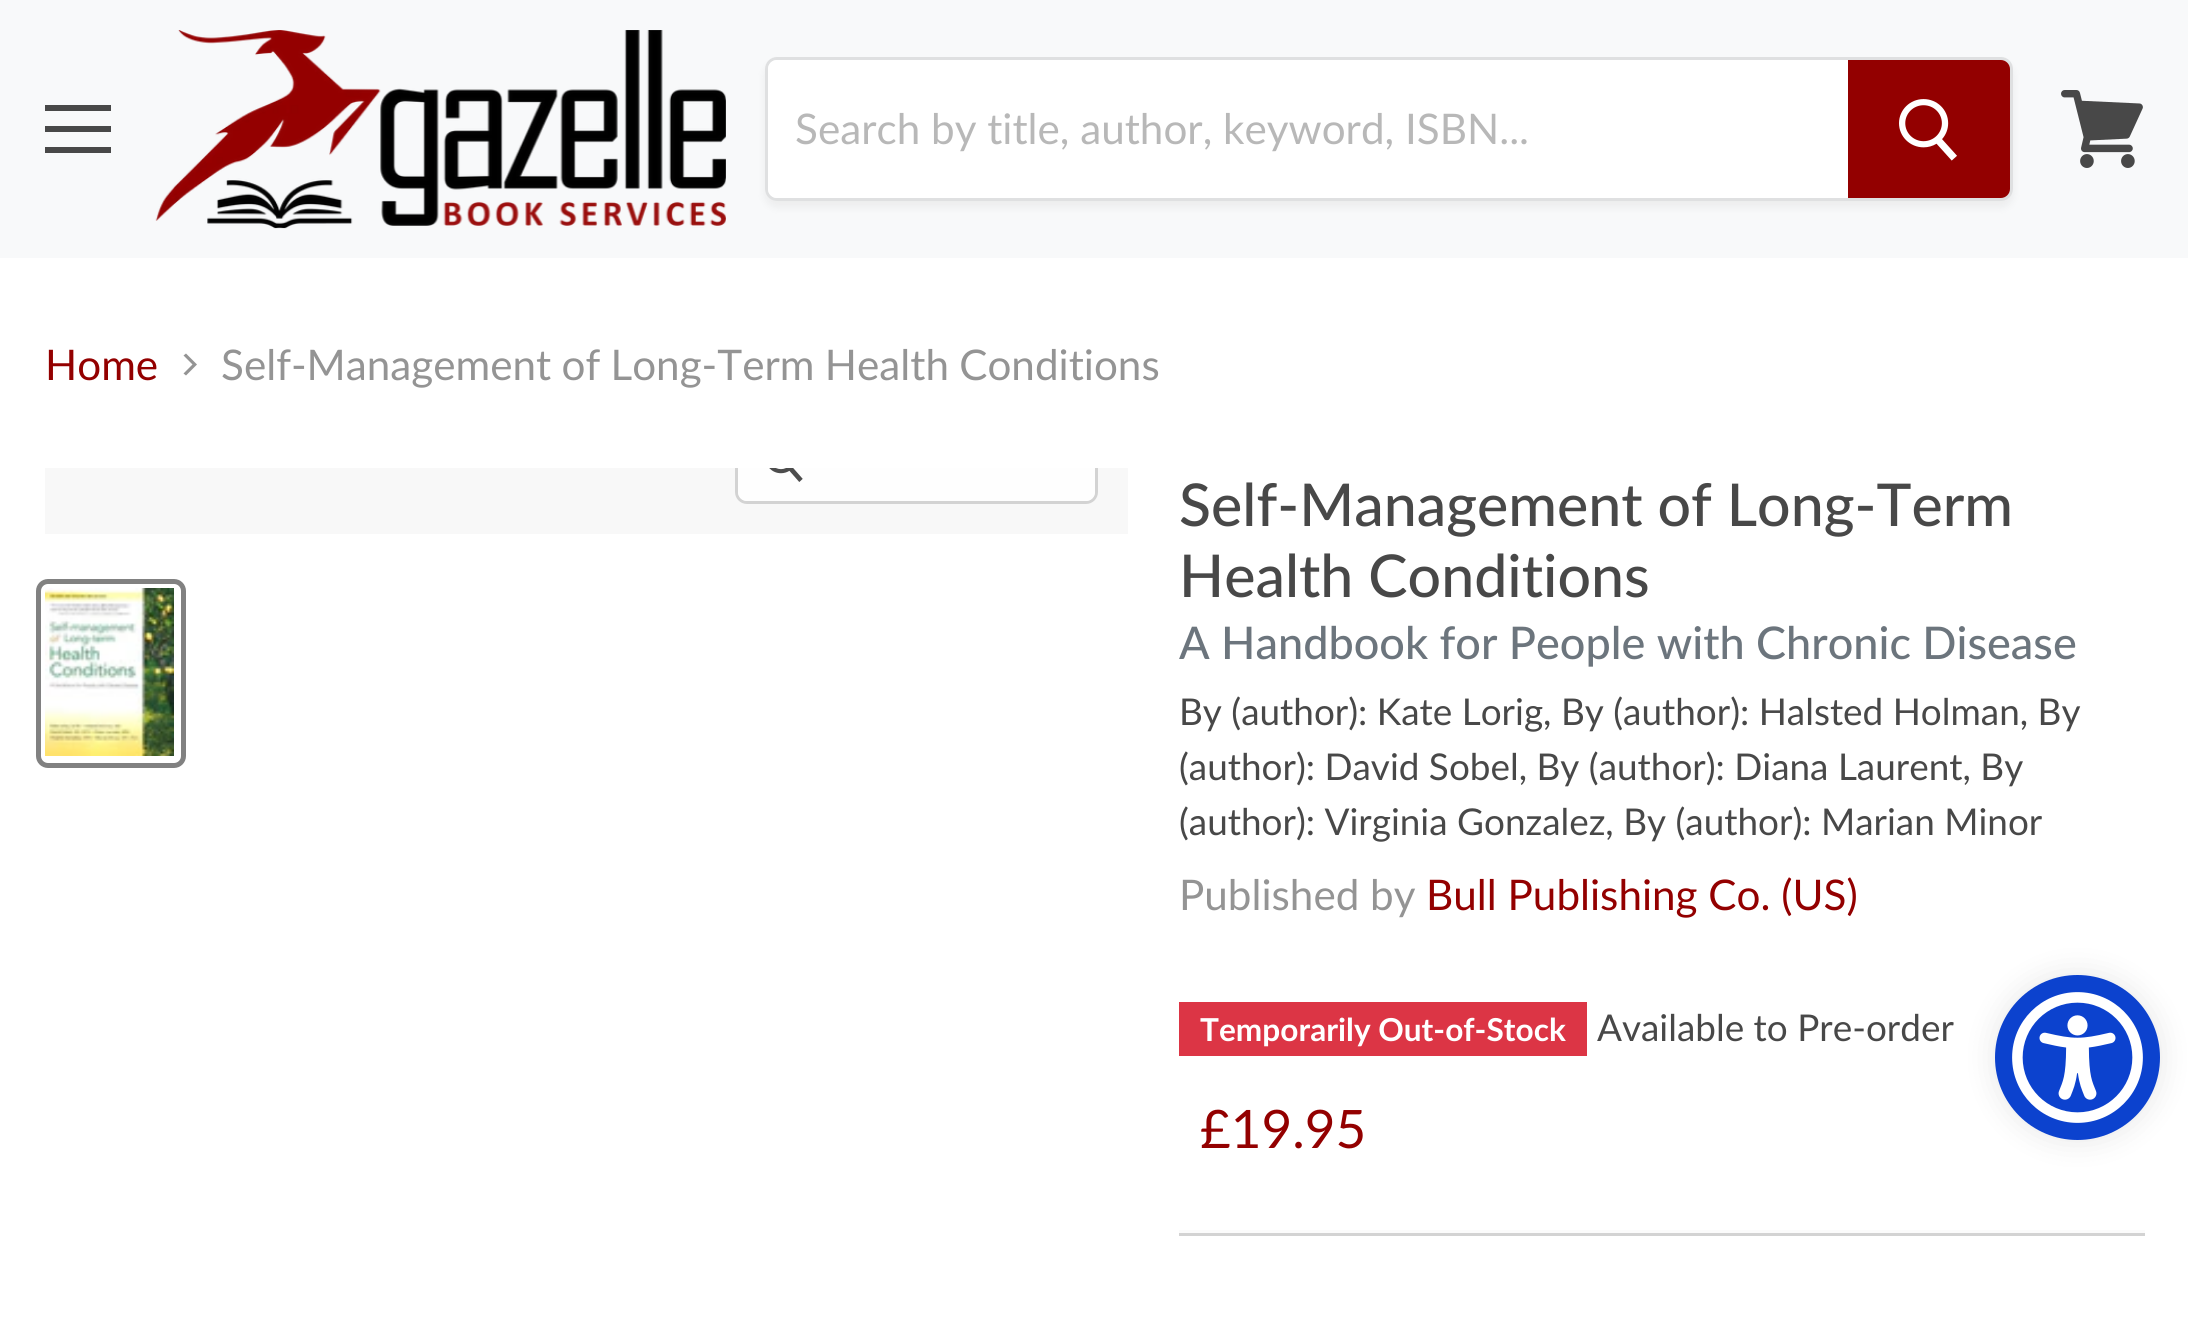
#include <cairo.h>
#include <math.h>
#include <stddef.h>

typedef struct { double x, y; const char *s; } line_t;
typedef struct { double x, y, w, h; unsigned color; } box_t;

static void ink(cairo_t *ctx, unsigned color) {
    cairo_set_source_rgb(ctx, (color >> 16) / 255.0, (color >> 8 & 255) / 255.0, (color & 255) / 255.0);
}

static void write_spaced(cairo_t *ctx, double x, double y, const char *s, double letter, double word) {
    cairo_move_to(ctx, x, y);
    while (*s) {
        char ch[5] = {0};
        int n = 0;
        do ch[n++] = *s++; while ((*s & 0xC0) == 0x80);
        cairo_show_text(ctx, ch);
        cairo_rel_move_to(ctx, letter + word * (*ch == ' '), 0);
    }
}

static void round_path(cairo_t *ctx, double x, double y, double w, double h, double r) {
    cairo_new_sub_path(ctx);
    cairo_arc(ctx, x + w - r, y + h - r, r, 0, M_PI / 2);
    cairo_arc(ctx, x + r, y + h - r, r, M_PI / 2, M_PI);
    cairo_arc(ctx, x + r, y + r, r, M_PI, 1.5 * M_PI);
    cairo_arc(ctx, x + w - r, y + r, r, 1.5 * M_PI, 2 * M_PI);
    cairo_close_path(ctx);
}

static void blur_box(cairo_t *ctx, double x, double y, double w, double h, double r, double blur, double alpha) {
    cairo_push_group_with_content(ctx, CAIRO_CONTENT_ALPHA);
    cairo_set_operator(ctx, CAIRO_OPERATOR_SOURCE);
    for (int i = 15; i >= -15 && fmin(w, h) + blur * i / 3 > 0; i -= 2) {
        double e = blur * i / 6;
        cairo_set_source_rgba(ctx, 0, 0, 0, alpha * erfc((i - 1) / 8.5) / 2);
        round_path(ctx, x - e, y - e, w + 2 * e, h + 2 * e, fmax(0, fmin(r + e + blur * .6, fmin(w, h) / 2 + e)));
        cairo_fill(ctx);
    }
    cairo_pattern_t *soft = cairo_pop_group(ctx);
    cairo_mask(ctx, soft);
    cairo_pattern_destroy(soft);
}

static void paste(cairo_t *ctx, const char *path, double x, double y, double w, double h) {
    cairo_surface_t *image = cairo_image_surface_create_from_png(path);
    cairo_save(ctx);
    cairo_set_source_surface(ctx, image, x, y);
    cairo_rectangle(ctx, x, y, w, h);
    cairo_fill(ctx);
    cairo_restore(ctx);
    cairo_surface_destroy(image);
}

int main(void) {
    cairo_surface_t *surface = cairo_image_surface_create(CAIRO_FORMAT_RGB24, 2188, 1319);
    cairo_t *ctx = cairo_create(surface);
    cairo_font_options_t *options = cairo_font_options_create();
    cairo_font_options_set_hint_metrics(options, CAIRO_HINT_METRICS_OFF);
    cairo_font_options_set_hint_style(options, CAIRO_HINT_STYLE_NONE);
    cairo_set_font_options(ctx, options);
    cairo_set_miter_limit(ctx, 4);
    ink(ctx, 0xFFFFFF);
    cairo_paint(ctx);
    {
        static const box_t items[] = {
            {0, 0, 2188, 258, 0xF8F9FA},
            {45, 105, 66, 6, 0x484848},
            {45, 126, 66, 6, 0x484848},
            {45, 147, 66, 6, 0x484848},
        };
        for (size_t i = 0; i < sizeof items / sizeof *items; i++) {
            ink(ctx, items[i].color);
            cairo_rectangle(ctx, items[i].x, items[i].y, items[i].w, items[i].h);
            cairo_fill(ctx);
        }
    }
    paste(ctx, "media/1.png", 155, 30, 571, 199);
    cairo_save(ctx);
    cairo_set_fill_rule(ctx, CAIRO_FILL_RULE_EVEN_ODD);
    cairo_new_path(ctx);
    cairo_move_to(ctx, 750, 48);
    cairo_line_to(ctx, 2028, 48);
    cairo_line_to(ctx, 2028, 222);
    cairo_line_to(ctx, 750, 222);
    cairo_close_path(ctx);
    cairo_move_to(ctx, 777, 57);
    cairo_line_to(ctx, 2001, 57);
    cairo_curve_to(ctx, 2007.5, 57, 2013, 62.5, 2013, 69);
    cairo_line_to(ctx, 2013, 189);
    cairo_curve_to(ctx, 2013, 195.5, 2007.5, 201, 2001, 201);
    cairo_line_to(ctx, 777, 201);
    cairo_curve_to(ctx, 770.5, 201, 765, 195.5, 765, 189);
    cairo_line_to(ctx, 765, 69);
    cairo_curve_to(ctx, 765, 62.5, 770.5, 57, 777, 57);
    cairo_close_path(ctx);
    cairo_clip(ctx);
    ink(ctx, 0x808080);
    blur_box(ctx, 765, 63, 1248, 144, 12, 4.5, 0.11);
    cairo_restore(ctx);
    round_path(ctx, 766.5, 58.5, 1245, 141, 10.5);
    cairo_set_source_rgba(ctx, 0.502, 0.502, 0.502, 0.2);
    cairo_set_line_width(ctx, 3);
    cairo_stroke(ctx);
    ink(ctx, 0xFFFFFF);
    cairo_new_path(ctx);
    cairo_move_to(ctx, 777, 60);
    cairo_line_to(ctx, 1848, 60);
    cairo_line_to(ctx, 1848, 198);
    cairo_line_to(ctx, 777, 198);
    cairo_curve_to(ctx, 772, 198, 768, 194, 768, 189);
    cairo_line_to(ctx, 768, 69);
    cairo_curve_to(ctx, 768, 64, 772, 60, 777, 60);
    cairo_close_path(ctx);
    cairo_fill(ctx);
    cairo_select_font_face(ctx, "Lato", CAIRO_FONT_SLANT_NORMAL, CAIRO_FONT_WEIGHT_NORMAL);
    cairo_set_font_size(ctx, 42.2);
    ink(ctx, 0xB8B8B8);
    cairo_move_to(ctx, 795, 144);
    cairo_show_text(ctx, "Search by title, author, keyword, ISBN...");
    ink(ctx, 0x930000);
    cairo_new_path(ctx);
    cairo_move_to(ctx, 1849.5, 61.5);
    cairo_line_to(ctx, 2001, 61.5);
    cairo_curve_to(ctx, 2005, 61.5, 2008.5, 65, 2008.5, 69);
    cairo_line_to(ctx, 2008.5, 189);
    cairo_curve_to(ctx, 2008.5, 193, 2005, 196.5, 2001, 196.5);
    cairo_line_to(ctx, 1849.5, 196.5);
    cairo_close_path(ctx);
    cairo_fill_preserve(ctx);
    cairo_stroke(ctx);
    paste(ctx, "media/2.png", 1899, 99, 58, 62);
    paste(ctx, "media/3.png", 2061, 90, 82, 78);
    cairo_move_to(ctx, 45, 380);
    cairo_show_text(ctx, "Home");
    ink(ctx, 0x949494);
    cairo_set_fill_rule(ctx, CAIRO_FILL_RULE_EVEN_ODD);
    cairo_new_path(ctx);
    cairo_move_to(ctx, 183.5, 373.5);
    cairo_line_to(ctx, 186, 375.5);
    cairo_line_to(ctx, 197, 364.5);
    cairo_line_to(ctx, 186, 353.5);
    cairo_line_to(ctx, 183.5, 355.5);
    cairo_line_to(ctx, 192.5, 364.5);
    cairo_close_path(ctx);
    cairo_fill(ctx);
    write_spaced(ctx, 221, 380, "Self-Management of Long-Term Health Conditions", 0, -0.5);
    ink(ctx, 0xF8F8F8);
    cairo_rectangle(ctx, 45, 468, 1083, 66);
    cairo_fill(ctx);
    cairo_save(ctx);
    cairo_set_fill_rule(ctx, CAIRO_FILL_RULE_WINDING);
    cairo_rectangle(ctx, 45, 468, 1083, 66);
    cairo_clip(ctx);
    round_path(ctx, 736.5, 424.5, 360, 78, 10.5);
    ink(ctx, 0xD3D3D3);
    cairo_stroke(ctx);
    cairo_restore(ctx);
    cairo_set_source_rgba(ctx, 1, 1, 1, 0.9);
    cairo_new_path(ctx);
    cairo_move_to(ctx, 738, 468);
    cairo_line_to(ctx, 1095, 468);
    cairo_line_to(ctx, 1095, 492);
    cairo_curve_to(ctx, 1095, 497, 1091, 501, 1086, 501);
    cairo_line_to(ctx, 747, 501);
    cairo_curve_to(ctx, 742, 501, 738, 497, 738, 492);
    cairo_close_path(ctx);
    cairo_fill(ctx);
    paste(ctx, "media/4.png", 769, 468, 34, 14);
    round_path(ctx, 38.5, 581.5, 145, 184, 9.5);
    ink(ctx, 0x818181);
    cairo_set_line_width(ctx, 5);
    cairo_stroke(ctx);
    paste(ctx, "media/5.png", 45, 588, 129, 168);
    cairo_select_font_face(ctx, "Lato Medium", CAIRO_FONT_SLANT_NORMAL, CAIRO_FONT_WEIGHT_NORMAL);
    cairo_set_font_size(ctx, 59);
    ink(ctx, 0x484848);
    cairo_move_to(ctx, 1179, 526);
    cairo_show_text(ctx, "Self-Management of Long-Term");
    cairo_move_to(ctx, 1179, 597);
    cairo_show_text(ctx, "Health Conditions");
    cairo_set_font_size(ctx, 45);
    ink(ctx, 0x6C757D);
    cairo_move_to(ctx, 1179, 659);
    cairo_show_text(ctx, "A Handbook for People with Chronic Disease");
    cairo_select_font_face(ctx, "Lato", CAIRO_FONT_SLANT_NORMAL, CAIRO_FONT_WEIGHT_NORMAL);
    cairo_set_font_size(ctx, 36.9);
    ink(ctx, 0x484848);
    {
        static const line_t items[] = {
            {1179, 725, "By (author): Kate Lorig, By (author): Halsted Holman, By"},
            {1179, 780, "(author): David Sobel, By (author): Diana Laurent, By"},
            {1179, 835, "(author): Virginia Gonzalez, By (author): Marian Minor"},
        };
        for (size_t i = 0; i < sizeof items / sizeof *items; i++) {
            cairo_move_to(ctx, items[i].x, items[i].y);
            cairo_show_text(ctx, items[i].s);
        }
    }
    cairo_set_font_size(ctx, 42.2);
    ink(ctx, 0x949494);
    cairo_move_to(ctx, 1179, 910);
    cairo_show_text(ctx, "Published by");
    ink(ctx, 0x930000);
    cairo_move_to(ctx, 1426, 910);
    cairo_show_text(ctx, "Bull Publishing Co. (US)");
    ink(ctx, 0xDC3545);
    cairo_rectangle(ctx, 1179, 1002, 408, 54);
    cairo_fill(ctx);
    cairo_select_font_face(ctx, "Lato", CAIRO_FONT_SLANT_NORMAL, CAIRO_FONT_WEIGHT_BOLD);
    cairo_set_font_size(ctx, 31.6);
    ink(ctx, 0xFFFFFF);
    cairo_move_to(ctx, 1200, 1041);
    cairo_show_text(ctx, "Temporarily Out-of-Stock");
    cairo_select_font_face(ctx, "Lato", CAIRO_FONT_SLANT_NORMAL, CAIRO_FONT_WEIGHT_NORMAL);
    cairo_set_font_size(ctx, 36.9);
    ink(ctx, 0x484848);
    cairo_move_to(ctx, 1597, 1041);
    cairo_show_text(ctx, "Available to Pre-order");
    cairo_set_font_size(ctx, 53);
    ink(ctx, 0x930000);
    cairo_move_to(ctx, 1200, 1148);
    cairo_show_text(ctx, "£19.95");
    ink(ctx, 0xD3D3D3);
    cairo_rectangle(ctx, 1179, 1233, 966, 3);
    cairo_fill(ctx);
    ink(ctx, 0xFBFBFB);
    cairo_rectangle(ctx, 1179, 1230, 966, 3);
    cairo_fill(ctx);
    ink(ctx, 0x000000);
    blur_box(ctx, 1995, 975, 165, 165, 82.5, 15, 0.1);
    ink(ctx, 0x0C42CE);
    cairo_arc(ctx, 2077.5, 1057.5, 82.5, 0, 2 * M_PI);
    cairo_fill(ctx);
    paste(ctx, "media/6.png", 2012, 992, 131, 131);
    cairo_surface_write_to_png(surface, "image.png");
    cairo_font_options_destroy(options);
    cairo_destroy(ctx);
    cairo_surface_destroy(surface);
    return 0;
}
